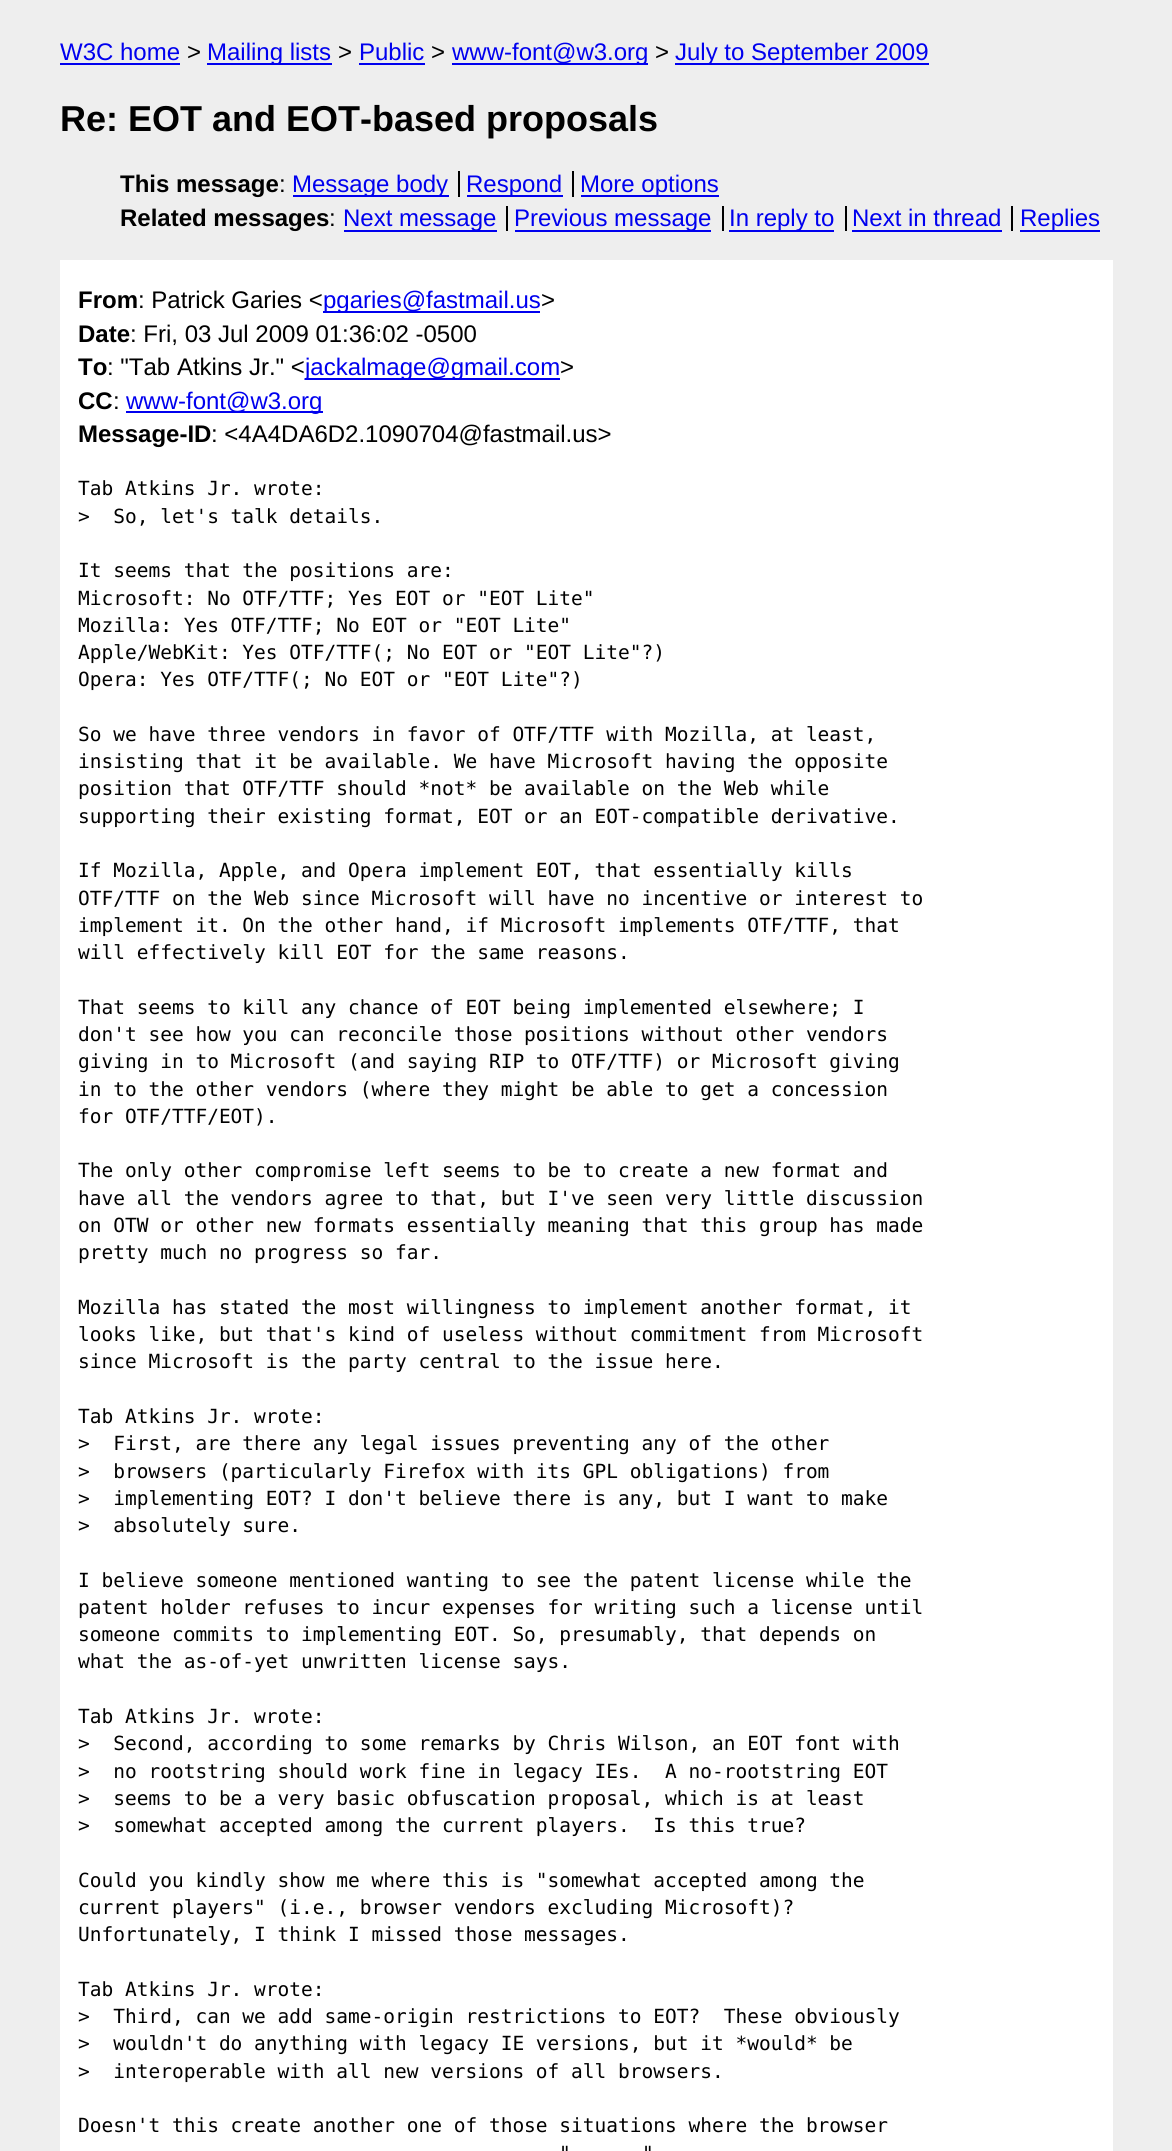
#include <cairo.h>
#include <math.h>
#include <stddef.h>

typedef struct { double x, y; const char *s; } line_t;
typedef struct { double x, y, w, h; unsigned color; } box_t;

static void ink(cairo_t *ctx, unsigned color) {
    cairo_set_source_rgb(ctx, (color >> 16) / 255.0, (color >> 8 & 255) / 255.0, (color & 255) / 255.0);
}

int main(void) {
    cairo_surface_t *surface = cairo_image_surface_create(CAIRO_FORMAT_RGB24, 1172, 2151);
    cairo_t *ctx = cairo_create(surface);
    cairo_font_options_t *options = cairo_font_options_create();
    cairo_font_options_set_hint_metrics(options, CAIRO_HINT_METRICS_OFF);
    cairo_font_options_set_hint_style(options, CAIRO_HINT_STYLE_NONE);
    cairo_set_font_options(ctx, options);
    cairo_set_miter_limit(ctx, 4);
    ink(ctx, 0xEEEEEE);
    cairo_paint(ctx);
    cairo_select_font_face(ctx, "Liberation Sans", CAIRO_FONT_SLANT_NORMAL, CAIRO_FONT_WEIGHT_NORMAL);
    cairo_set_font_size(ctx, 24);
    ink(ctx, 0x0000EE);
    cairo_move_to(ctx, 60, 60);
    cairo_show_text(ctx, "W3C home");
    cairo_rectangle(ctx, 60, 63, 120, 2);
    cairo_fill(ctx);
    ink(ctx, 0x000000);
    cairo_move_to(ctx, 187, 60);
    cairo_show_text(ctx, ">");
    ink(ctx, 0x0000EE);
    cairo_rectangle(ctx, 207, 63, 125, 2);
    cairo_fill(ctx);
    cairo_move_to(ctx, 207, 60);
    cairo_show_text(ctx, "Mailing lists");
    ink(ctx, 0x000000);
    cairo_move_to(ctx, 338, 60);
    cairo_show_text(ctx, ">");
    ink(ctx, 0x0000EE);
    cairo_move_to(ctx, 359, 60);
    cairo_show_text(ctx, "Public");
    cairo_rectangle(ctx, 359, 63, 66, 2);
    cairo_fill(ctx);
    ink(ctx, 0x000000);
    cairo_move_to(ctx, 431, 60);
    cairo_show_text(ctx, ">");
    ink(ctx, 0x0000EE);
    cairo_rectangle(ctx, 452, 63, 196, 2);
    cairo_fill(ctx);
    cairo_move_to(ctx, 452, 60);
    cairo_show_text(ctx, "www-font@w3.org");
    ink(ctx, 0x000000);
    cairo_move_to(ctx, 655, 60);
    cairo_show_text(ctx, ">");
    ink(ctx, 0x0000EE);
    cairo_rectangle(ctx, 675, 63, 254, 2);
    cairo_fill(ctx);
    cairo_move_to(ctx, 675, 60);
    cairo_show_text(ctx, "July to September 2009");
    cairo_select_font_face(ctx, "Liberation Sans", CAIRO_FONT_SLANT_NORMAL, CAIRO_FONT_WEIGHT_BOLD);
    cairo_set_font_size(ctx, 36);
    ink(ctx, 0x000000);
    cairo_move_to(ctx, 60, 131);
    cairo_show_text(ctx, "Re: EOT and EOT-based proposals");
    cairo_set_font_size(ctx, 24);
    cairo_move_to(ctx, 120, 192);
    cairo_show_text(ctx, "This message");
    cairo_select_font_face(ctx, "Liberation Sans", CAIRO_FONT_SLANT_NORMAL, CAIRO_FONT_WEIGHT_NORMAL);
    cairo_move_to(ctx, 279, 192);
    cairo_show_text(ctx, ":");
    ink(ctx, 0x0000EE);
    cairo_rectangle(ctx, 293, 195, 156, 2);
    cairo_fill(ctx);
    cairo_move_to(ctx, 292, 192);
    cairo_show_text(ctx, "Message body");
    cairo_rectangle(ctx, 467, 195, 96, 2);
    cairo_fill(ctx);
    cairo_move_to(ctx, 466, 192);
    cairo_show_text(ctx, "Respond");
    ink(ctx, 0x000000);
    cairo_rectangle(ctx, 458, 171, 2, 26);
    cairo_fill(ctx);
    ink(ctx, 0x0000EE);
    cairo_rectangle(ctx, 581, 195, 138, 2);
    cairo_fill(ctx);
    cairo_move_to(ctx, 580, 192);
    cairo_show_text(ctx, "More options");
    ink(ctx, 0x000000);
    cairo_rectangle(ctx, 572, 171, 2, 26);
    cairo_fill(ctx);
    cairo_select_font_face(ctx, "Liberation Sans", CAIRO_FONT_SLANT_NORMAL, CAIRO_FONT_WEIGHT_BOLD);
    cairo_move_to(ctx, 120, 226);
    cairo_show_text(ctx, "Related messages");
    cairo_select_font_face(ctx, "Liberation Sans", CAIRO_FONT_SLANT_NORMAL, CAIRO_FONT_WEIGHT_NORMAL);
    cairo_move_to(ctx, 329, 226);
    cairo_show_text(ctx, ":");
    ink(ctx, 0x0000EE);
    cairo_rectangle(ctx, 344, 230, 153, 2);
    cairo_fill(ctx);
    cairo_move_to(ctx, 343, 226);
    cairo_show_text(ctx, "Next message");
    cairo_rectangle(ctx, 515, 230, 196, 2);
    cairo_fill(ctx);
    cairo_move_to(ctx, 514, 226);
    cairo_show_text(ctx, "Previous message");
    ink(ctx, 0x000000);
    cairo_rectangle(ctx, 506, 206, 2, 25);
    cairo_fill(ctx);
    ink(ctx, 0x0000EE);
    cairo_rectangle(ctx, 729, 230, 105, 2);
    cairo_fill(ctx);
    cairo_move_to(ctx, 729, 226);
    cairo_show_text(ctx, "In reply to");
    ink(ctx, 0x000000);
    cairo_rectangle(ctx, 722, 206, 2, 25);
    cairo_fill(ctx);
    ink(ctx, 0x0000EE);
    cairo_move_to(ctx, 852, 226);
    cairo_show_text(ctx, "Next in thread");
    {
        static const box_t items[] = {
            {845, 206, 2, 25, 0x000000},
            {852, 230, 150, 2, 0x0000EE},
            {1020, 230, 80, 2, 0x0000EE},
        };
        for (size_t i = 0; i < sizeof items / sizeof *items; i++) {
            ink(ctx, items[i].color);
            cairo_rectangle(ctx, items[i].x, items[i].y, items[i].w, items[i].h);
            cairo_fill(ctx);
        }
    }
    cairo_move_to(ctx, 1020, 226);
    cairo_show_text(ctx, "Replies");
    ink(ctx, 0x000000);
    cairo_rectangle(ctx, 1011, 206, 2, 25);
    cairo_fill(ctx);
    ink(ctx, 0xFFFFFF);
    cairo_rectangle(ctx, 60, 260, 1053, 1891);
    cairo_fill(ctx);
    cairo_select_font_face(ctx, "Liberation Sans", CAIRO_FONT_SLANT_NORMAL, CAIRO_FONT_WEIGHT_BOLD);
    ink(ctx, 0x000000);
    cairo_move_to(ctx, 78, 308);
    cairo_show_text(ctx, "From");
    cairo_select_font_face(ctx, "Liberation Sans", CAIRO_FONT_SLANT_NORMAL, CAIRO_FONT_WEIGHT_NORMAL);
    cairo_move_to(ctx, 138, 308);
    cairo_show_text(ctx, ": Patrick Garies <");
    ink(ctx, 0x0000EE);
    cairo_rectangle(ctx, 323, 311, 217, 2);
    cairo_fill(ctx);
    cairo_move_to(ctx, 323, 308);
    cairo_show_text(ctx, "pgaries@fastmail.us");
    ink(ctx, 0x000000);
    cairo_move_to(ctx, 541, 308);
    cairo_show_text(ctx, ">");
    cairo_select_font_face(ctx, "Liberation Sans", CAIRO_FONT_SLANT_NORMAL, CAIRO_FONT_WEIGHT_BOLD);
    cairo_move_to(ctx, 78, 342);
    cairo_show_text(ctx, "Date");
    cairo_select_font_face(ctx, "Liberation Sans", CAIRO_FONT_SLANT_NORMAL, CAIRO_FONT_WEIGHT_NORMAL);
    cairo_move_to(ctx, 130, 342);
    cairo_show_text(ctx, ": Fri, 03 Jul 2009 01:36:02 -0500");
    cairo_select_font_face(ctx, "Liberation Sans", CAIRO_FONT_SLANT_NORMAL, CAIRO_FONT_WEIGHT_BOLD);
    cairo_move_to(ctx, 78, 375);
    cairo_show_text(ctx, "To");
    cairo_select_font_face(ctx, "Liberation Sans", CAIRO_FONT_SLANT_NORMAL, CAIRO_FONT_WEIGHT_NORMAL);
    cairo_move_to(ctx, 107, 375);
    cairo_show_text(ctx, ": \"Tab Atkins Jr.\" <");
    ink(ctx, 0x0000EE);
    cairo_rectangle(ctx, 305, 378, 255, 2);
    cairo_fill(ctx);
    cairo_move_to(ctx, 305, 375);
    cairo_show_text(ctx, "jackalmage@gmail.com");
    ink(ctx, 0x000000);
    cairo_move_to(ctx, 560, 375);
    cairo_show_text(ctx, ">");
    cairo_select_font_face(ctx, "Liberation Sans", CAIRO_FONT_SLANT_NORMAL, CAIRO_FONT_WEIGHT_BOLD);
    cairo_move_to(ctx, 78, 409);
    cairo_show_text(ctx, "CC");
    cairo_select_font_face(ctx, "Liberation Sans", CAIRO_FONT_SLANT_NORMAL, CAIRO_FONT_WEIGHT_NORMAL);
    cairo_move_to(ctx, 113, 409);
    cairo_show_text(ctx, ":");
    ink(ctx, 0x0000EE);
    cairo_rectangle(ctx, 126, 411, 197, 2);
    cairo_fill(ctx);
    cairo_move_to(ctx, 126, 409);
    cairo_show_text(ctx, "www-font@w3.org");
    cairo_select_font_face(ctx, "Liberation Sans", CAIRO_FONT_SLANT_NORMAL, CAIRO_FONT_WEIGHT_BOLD);
    ink(ctx, 0x000000);
    cairo_move_to(ctx, 78, 442);
    cairo_show_text(ctx, "Message-ID");
    cairo_select_font_face(ctx, "Liberation Sans", CAIRO_FONT_SLANT_NORMAL, CAIRO_FONT_WEIGHT_NORMAL);
    cairo_move_to(ctx, 211, 442);
    cairo_show_text(ctx, ": <4A4DA6D2.1090704@fastmail.us>");
    cairo_select_font_face(ctx, "DejaVu Sans Mono", CAIRO_FONT_SLANT_NORMAL, CAIRO_FONT_WEIGHT_NORMAL);
    cairo_set_font_size(ctx, 19.5);
    {
        static const line_t items[] = {
            {78, 495, "Tab Atkins Jr. wrote:"},
            {78, 523, ">  So, let's talk details."},
            {78, 577, "It seems that the positions are:"},
            {78, 605, "Microsoft: No OTF/TTF; Yes EOT or \"EOT Lite\""},
            {78, 632, "Mozilla: Yes OTF/TTF; No EOT or \"EOT Lite\""},
            {78, 659, "Apple/WebKit: Yes OTF/TTF(; No EOT or \"EOT Lite\"?)"},
            {78, 686, "Opera: Yes OTF/TTF(; No EOT or \"EOT Lite\"?)"},
            {78, 741, "So we have three vendors in favor of OTF/TTF with Mozilla, at least,"},
            {78, 768, "insisting that it be available. We have Microsoft having the opposite"},
            {78, 795, "position that OTF/TTF should *not* be available on the Web while"},
            {78, 823, "supporting their existing format, EOT or an EOT-compatible derivative."},
            {78, 877, "If Mozilla, Apple, and Opera implement EOT, that essentially kills"},
            {78, 905, "OTF/TTF on the Web since Microsoft will have no incentive or interest to"},
            {78, 932, "implement it. On the other hand, if Microsoft implements OTF/TTF, that"},
            {78, 959, "will effectively kill EOT for the same reasons."},
            {78, 1014, "That seems to kill any chance of EOT being implemented elsewhere; I"},
            {78, 1041, "don't see how you can reconcile those positions without other vendors"},
            {78, 1068, "giving in to Microsoft (and saying RIP to OTF/TTF) or Microsoft giving"},
            {78, 1096, "in to the other vendors (where they might be able to get a concession"},
            {78, 1123, "for OTF/TTF/EOT)."},
            {78, 1177, "The only other compromise left seems to be to create a new format and"},
            {78, 1205, "have all the vendors agree to that, but I've seen very little discussion"},
            {78, 1232, "on OTW or other new formats essentially meaning that this group has made"},
            {78, 1259, "pretty much no progress so far."},
            {78, 1314, "Mozilla has stated the most willingness to implement another format, it"},
            {78, 1341, "looks like, but that's kind of useless without commitment from Microsoft"},
            {78, 1368, "since Microsoft is the party central to the issue here."},
            {78, 1423, "Tab Atkins Jr. wrote:"},
            {78, 1450, ">  First, are there any legal issues preventing any of the other"},
            {78, 1478, ">  browsers (particularly Firefox with its GPL obligations) from"},
            {78, 1505, ">  implementing EOT? I don't believe there is any, but I want to make"},
            {78, 1532, ">  absolutely sure."},
            {78, 1587, "I believe someone mentioned wanting to see the patent license while the"},
            {78, 1614, "patent holder refuses to incur expenses for writing such a license until"},
            {78, 1641, "someone commits to implementing EOT. So, presumably, that depends on"},
            {78, 1668, "what the as-of-yet unwritten license says."},
            {78, 1723, "Tab Atkins Jr. wrote:"},
            {78, 1750, ">  Second, according to some remarks by Chris Wilson, an EOT font with"},
            {78, 1778, ">  no rootstring should work fine in legacy IEs.  A no-rootstring EOT"},
            {78, 1805, ">  seems to be a very basic obfuscation proposal, which is at least"},
            {78, 1832, ">  somewhat accepted among the current players.  Is this true?"},
            {78, 1887, "Could you kindly show me where this is \"somewhat accepted among the"},
            {78, 1914, "current players\" (i.e., browser vendors excluding Microsoft)?"},
            {78, 1941, "Unfortunately, I think I missed those messages."},
            {78, 1996, "Tab Atkins Jr. wrote:"},
            {78, 2023, ">  Third, can we add same-origin restrictions to EOT?  These obviously"},
            {78, 2050, ">  wouldn't do anything with legacy IE versions, but it *would* be"},
            {78, 2078, ">  interoperable with all new versions of all browsers."},
            {78, 2132, "Doesn't this create another one of those situations where the browser"},
            {559, 2160, "\""},
            {642, 2160, "\""},
        };
        for (size_t i = 0; i < sizeof items / sizeof *items; i++) {
            cairo_move_to(ctx, items[i].x, items[i].y);
            cairo_show_text(ctx, items[i].s);
        }
    }
    cairo_surface_write_to_png(surface, "image.png");
    cairo_font_options_destroy(options);
    cairo_destroy(ctx);
    cairo_surface_destroy(surface);
    return 0;
}
